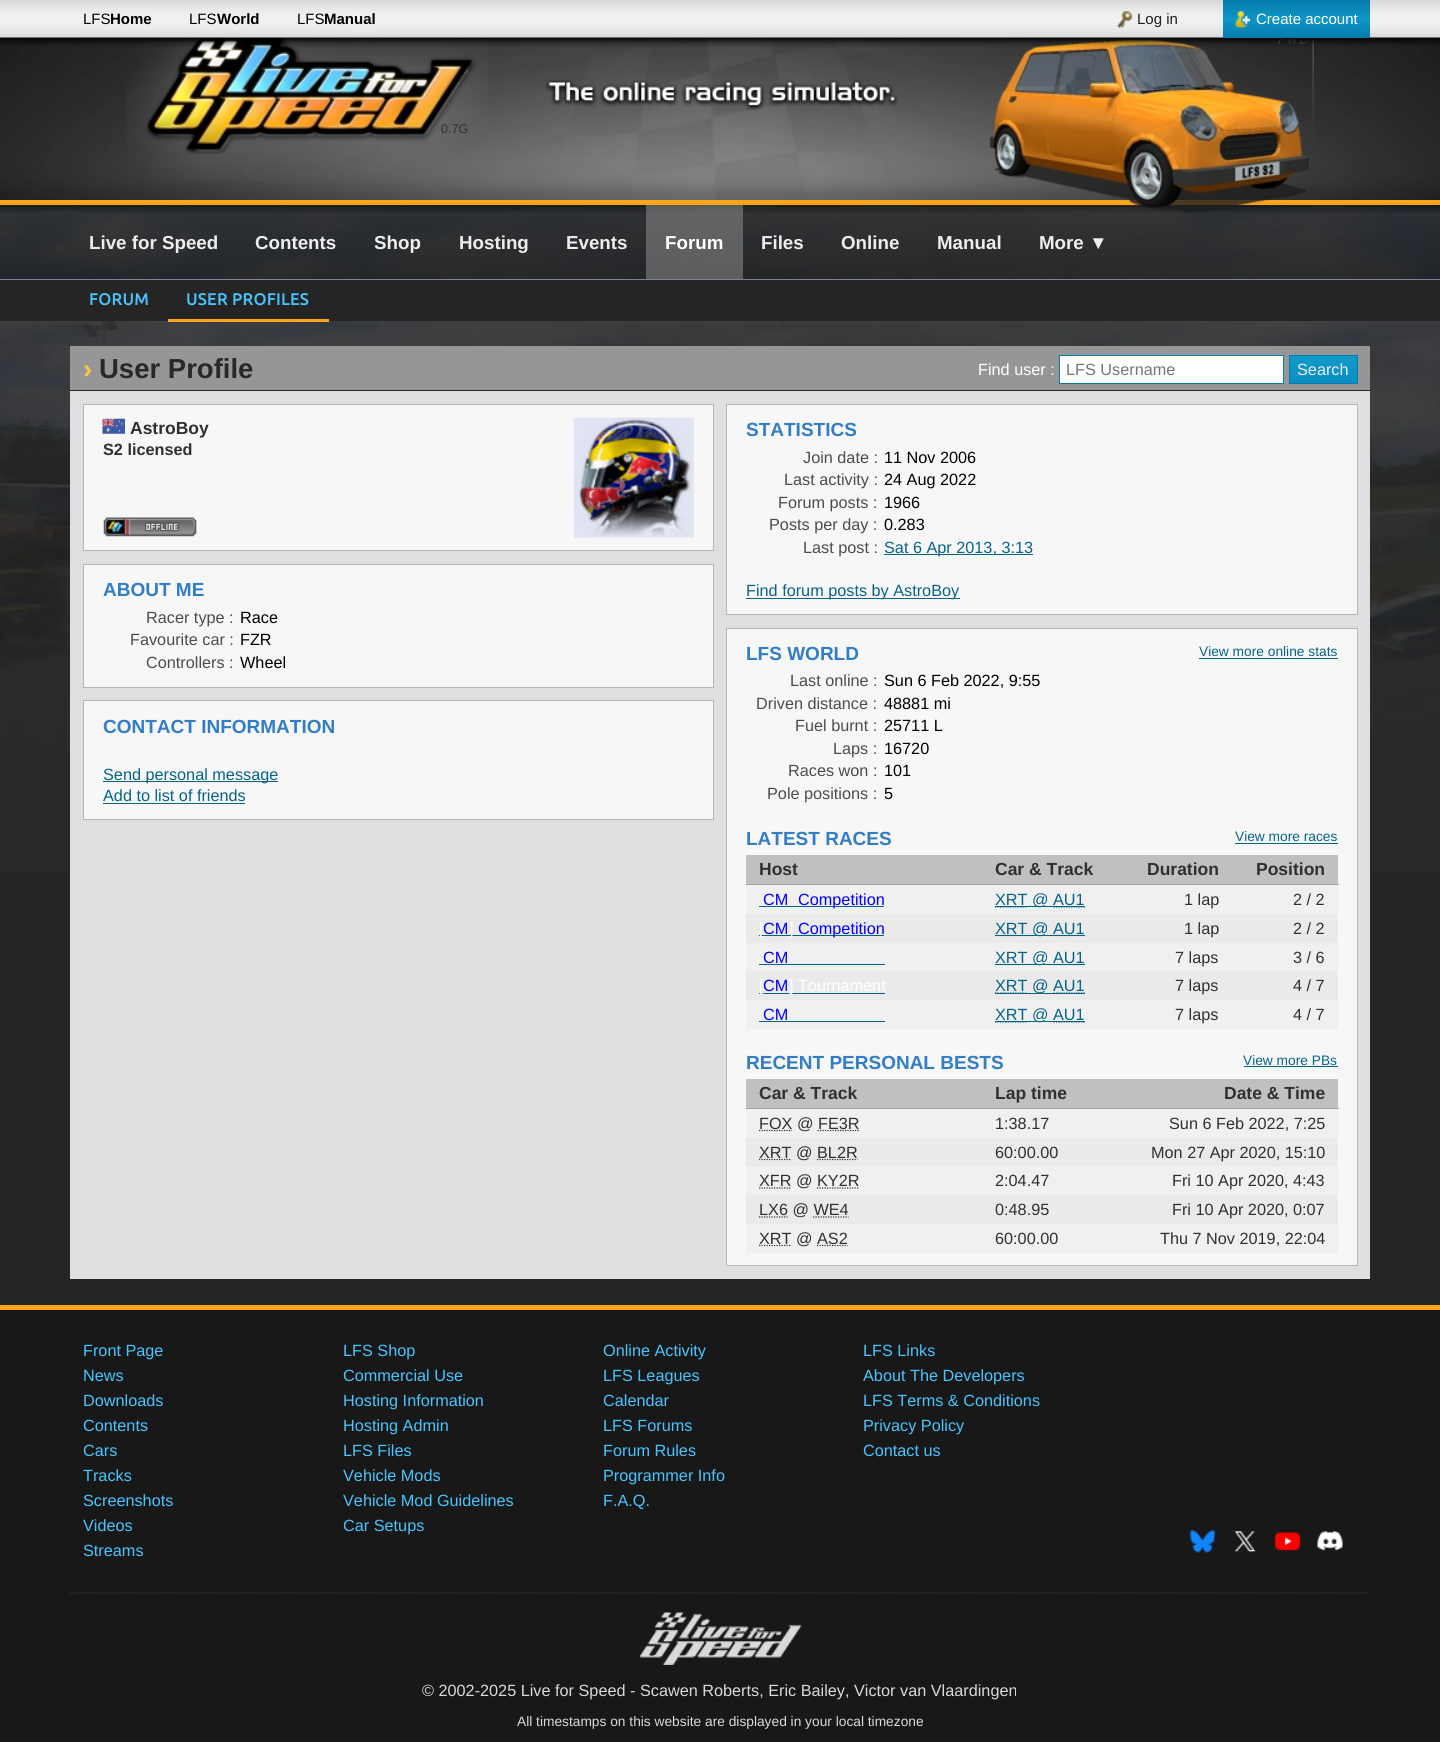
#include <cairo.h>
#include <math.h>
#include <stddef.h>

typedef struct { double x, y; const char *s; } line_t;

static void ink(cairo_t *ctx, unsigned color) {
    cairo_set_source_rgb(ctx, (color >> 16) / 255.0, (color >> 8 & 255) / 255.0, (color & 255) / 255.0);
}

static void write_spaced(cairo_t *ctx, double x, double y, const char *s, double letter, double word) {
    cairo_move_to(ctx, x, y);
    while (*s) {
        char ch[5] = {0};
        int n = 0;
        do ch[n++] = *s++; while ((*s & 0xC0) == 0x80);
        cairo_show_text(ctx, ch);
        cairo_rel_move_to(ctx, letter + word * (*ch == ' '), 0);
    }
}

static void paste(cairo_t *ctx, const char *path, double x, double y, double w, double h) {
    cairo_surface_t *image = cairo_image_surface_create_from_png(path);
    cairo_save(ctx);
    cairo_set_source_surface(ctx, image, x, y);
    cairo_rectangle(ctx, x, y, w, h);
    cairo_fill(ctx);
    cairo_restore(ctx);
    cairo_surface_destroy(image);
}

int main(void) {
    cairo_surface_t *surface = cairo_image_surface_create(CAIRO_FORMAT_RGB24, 1440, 1742);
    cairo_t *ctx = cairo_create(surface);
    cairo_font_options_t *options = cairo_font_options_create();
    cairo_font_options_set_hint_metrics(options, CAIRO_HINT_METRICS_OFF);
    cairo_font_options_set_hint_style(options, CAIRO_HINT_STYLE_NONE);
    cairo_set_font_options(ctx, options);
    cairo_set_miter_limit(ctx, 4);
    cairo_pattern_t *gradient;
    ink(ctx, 0x242424);
    cairo_paint(ctx);
    paste(ctx, "media/1.png", 0, 205, 1440, 667);
    paste(ctx, "media/5.png", 0, 37, 1440, 163);
    ink(ctx, 0xFFA519);
    cairo_rectangle(ctx, 0, 200, 1440, 5);
    cairo_fill(ctx);
    paste(ctx, "media/7.png", 990, 38, 324, 175);
    paste(ctx, "media/8.png", 127, 37, 362, 144);
    paste(ctx, "media/2.png", 0, 0, 1440, 48);
    cairo_select_font_face(ctx, "Liberation Sans", CAIRO_FONT_SLANT_NORMAL, CAIRO_FONT_WEIGHT_NORMAL);
    cairo_set_font_size(ctx, 15);
    ink(ctx, 0x000000);
    cairo_move_to(ctx, 83, 24);
    cairo_show_text(ctx, "LFS");
    cairo_select_font_face(ctx, "Liberation Sans", CAIRO_FONT_SLANT_NORMAL, CAIRO_FONT_WEIGHT_BOLD);
    cairo_move_to(ctx, 110, 24);
    cairo_show_text(ctx, "Home");
    cairo_select_font_face(ctx, "Liberation Sans", CAIRO_FONT_SLANT_NORMAL, CAIRO_FONT_WEIGHT_NORMAL);
    cairo_move_to(ctx, 189, 24);
    cairo_show_text(ctx, "LFS");
    cairo_select_font_face(ctx, "Liberation Sans", CAIRO_FONT_SLANT_NORMAL, CAIRO_FONT_WEIGHT_BOLD);
    cairo_move_to(ctx, 217, 24);
    cairo_show_text(ctx, "World");
    cairo_select_font_face(ctx, "Liberation Sans", CAIRO_FONT_SLANT_NORMAL, CAIRO_FONT_WEIGHT_NORMAL);
    cairo_move_to(ctx, 297, 24);
    cairo_show_text(ctx, "LFS");
    cairo_select_font_face(ctx, "Liberation Sans", CAIRO_FONT_SLANT_NORMAL, CAIRO_FONT_WEIGHT_BOLD);
    cairo_move_to(ctx, 324, 24);
    cairo_show_text(ctx, "Manual");
    paste(ctx, "media/3.png", 1117, 11, 16, 18);
    cairo_select_font_face(ctx, "Liberation Sans", CAIRO_FONT_SLANT_NORMAL, CAIRO_FONT_WEIGHT_NORMAL);
    ink(ctx, 0x202020);
    cairo_move_to(ctx, 1137, 24);
    cairo_show_text(ctx, "Log in");
    gradient = cairo_pattern_create_linear(1296, 0, 1296, 38);
    cairo_pattern_add_color_stop_rgba(gradient, 0, 0.02, 0.482, 0.678, 1);
    cairo_pattern_add_color_stop_rgba(gradient, 0.5, 0.055, 0.588, 0.78, 1);
    cairo_pattern_add_color_stop_rgba(gradient, 1, 0.02, 0.482, 0.678, 1);
    cairo_set_source(ctx, gradient);
    cairo_pattern_destroy(gradient);
    cairo_rectangle(ctx, 1223, 0, 147, 38);
    cairo_fill(ctx);
    paste(ctx, "media/4.png", 1235, 11, 15, 18);
    ink(ctx, 0xFFFFFF);
    cairo_move_to(ctx, 1256, 24);
    cairo_show_text(ctx, "Create account");
    paste(ctx, "media/6.png", 545, 79, 353, 32);
    cairo_set_font_size(ctx, 12.5);
    ink(ctx, 0x303030);
    cairo_move_to(ctx, 441, 133);
    cairo_show_text(ctx, "0.7G");
    cairo_set_source_rgba(ctx, 0.784, 0.784, 0.98, 0.5);
    cairo_rectangle(ctx, 0, 279, 1440, 1);
    cairo_fill(ctx);
    cairo_select_font_face(ctx, "Liberation Sans", CAIRO_FONT_SLANT_NORMAL, CAIRO_FONT_WEIGHT_BOLD);
    cairo_set_font_size(ctx, 18.75);
    ink(ctx, 0xEEEEEE);
    {
        static const line_t items[] = {
            {89, 249, "Live for Speed"},
            {255, 249, "Contents"},
            {374, 249, "Shop"},
            {459, 249, "Hosting"},
            {566, 249, "Events"},
        };
        for (size_t i = 0; i < sizeof items / sizeof *items; i++) {
            cairo_move_to(ctx, items[i].x, items[i].y);
            cairo_show_text(ctx, items[i].s);
        }
    }
    cairo_set_source_rgba(ctx, 0.588, 0.588, 0.588, 0.5);
    cairo_rectangle(ctx, 646, 205, 97, 74);
    cairo_fill(ctx);
    ink(ctx, 0xFFFFFF);
    cairo_move_to(ctx, 665, 249);
    cairo_show_text(ctx, "Forum");
    ink(ctx, 0xEEEEEE);
    {
        static const line_t items[] = {
            {761, 249, "Files"},
            {841, 249, "Online"},
            {937, 249, "Manual"},
            {1039, 249, "More"},
        };
        for (size_t i = 0; i < sizeof items / sizeof *items; i++) {
            cairo_move_to(ctx, items[i].x, items[i].y);
            cairo_show_text(ctx, items[i].s);
        }
    }
    cairo_select_font_face(ctx, "Liberation Sans", CAIRO_FONT_SLANT_NORMAL, CAIRO_FONT_WEIGHT_NORMAL);
    cairo_move_to(ctx, 1089, 249);
    cairo_show_text(ctx, "▼");
    ink(ctx, 0x252525);
    cairo_rectangle(ctx, 0, 280, 1440, 41);
    cairo_fill(ctx);
    cairo_select_font_face(ctx, "Ubuntu", CAIRO_FONT_SLANT_NORMAL, CAIRO_FONT_WEIGHT_BOLD);
    cairo_set_font_size(ctx, 16.25);
    ink(ctx, 0x48C5FF);
    write_spaced(ctx, 89, 305, "FORUM", 0.6, 0);
    ink(ctx, 0xFFA519);
    cairo_rectangle(ctx, 168, 319, 161, 3);
    cairo_fill(ctx);
    ink(ctx, 0x48C5FF);
    write_spaced(ctx, 186, 305, "USER PROFILES", 0.6, 0);
    ink(ctx, 0x969696);
    cairo_rectangle(ctx, 70, 346, 1300, 44);
    cairo_fill(ctx);
    cairo_select_font_face(ctx, "Liberation Sans", CAIRO_FONT_SLANT_NORMAL, CAIRO_FONT_WEIGHT_BOLD);
    cairo_set_font_size(ctx, 27.5);
    ink(ctx, 0xFBC946);
    cairo_move_to(ctx, 83, 378);
    cairo_show_text(ctx, "›");
    ink(ctx, 0x282828);
    cairo_move_to(ctx, 99, 378);
    cairo_show_text(ctx, "User Profile");
    cairo_select_font_face(ctx, "Liberation Sans", CAIRO_FONT_SLANT_NORMAL, CAIRO_FONT_WEIGHT_NORMAL);
    cairo_set_font_size(ctx, 16.25);
    ink(ctx, 0xFFFFFF);
    cairo_move_to(ctx, 978, 375);
    cairo_show_text(ctx, "Find user :");
    cairo_rectangle(ctx, 1059.5, 355.5, 224, 28);
    cairo_fill_preserve(ctx);
    ink(ctx, 0x057BAD);
    cairo_set_line_width(ctx, 1);
    cairo_stroke(ctx);
    ink(ctx, 0x757575);
    cairo_move_to(ctx, 1066, 375);
    cairo_show_text(ctx, "LFS Username");
    gradient = cairo_pattern_create_linear(1323, 356, 1323, 383);
    cairo_pattern_add_color_stop_rgba(gradient, 0, 0.063, 0.604, 0.788, 1);
    cairo_pattern_add_color_stop_rgba(gradient, 1, 0.039, 0.557, 0.765, 1);
    cairo_set_source(ctx, gradient);
    cairo_pattern_destroy(gradient);
    cairo_rectangle(ctx, 1290, 356, 67, 27);
    cairo_fill(ctx);
    cairo_rectangle(ctx, 1289.5, 355.5, 68, 28);
    ink(ctx, 0x057BAD);
    cairo_stroke(ctx);
    ink(ctx, 0xEEEEEE);
    cairo_move_to(ctx, 1297, 375);
    cairo_show_text(ctx, "Search");
    ink(ctx, 0xDFDEE0);
    cairo_rectangle(ctx, 70, 391, 1300, 888);
    cairo_fill(ctx);
    ink(ctx, 0x282828);
    cairo_rectangle(ctx, 70, 390, 1300, 1);
    cairo_fill(ctx);
    ink(ctx, 0xF7F7F7);
    cairo_rectangle(ctx, 83.5, 404.5, 630, 146);
    cairo_fill_preserve(ctx);
    ink(ctx, 0xB5B5B5);
    cairo_stroke(ctx);
    paste(ctx, "media/9.png", 102, 418, 23, 16);
    cairo_select_font_face(ctx, "Liberation Sans", CAIRO_FONT_SLANT_NORMAL, CAIRO_FONT_WEIGHT_BOLD);
    cairo_set_font_size(ctx, 17.5);
    ink(ctx, 0x303030);
    cairo_move_to(ctx, 130, 434);
    cairo_show_text(ctx, "AstroBoy");
    paste(ctx, "media/10.png", 573, 417, 121, 121);
    cairo_set_font_size(ctx, 16.25);
    cairo_move_to(ctx, 103, 455);
    cairo_show_text(ctx, "S2 licensed");
    paste(ctx, "media/11.png", 103, 517, 94, 20);
    ink(ctx, 0xF7F7F7);
    cairo_rectangle(ctx, 83.5, 564.5, 630, 123);
    cairo_fill_preserve(ctx);
    ink(ctx, 0xB5B5B5);
    cairo_stroke(ctx);
    cairo_set_font_size(ctx, 19);
    ink(ctx, 0x327DC8);
    cairo_move_to(ctx, 103, 596);
    cairo_show_text(ctx, "ABOUT ME");
    cairo_select_font_face(ctx, "Liberation Sans", CAIRO_FONT_SLANT_NORMAL, CAIRO_FONT_WEIGHT_NORMAL);
    cairo_set_font_size(ctx, 16.25);
    ink(ctx, 0x4C4C4C);
    cairo_move_to(ctx, 146, 623);
    cairo_show_text(ctx, "Racer type :");
    ink(ctx, 0x000000);
    cairo_move_to(ctx, 240, 623);
    cairo_show_text(ctx, "Race");
    ink(ctx, 0x4C4C4C);
    cairo_move_to(ctx, 130, 645);
    cairo_show_text(ctx, "Favourite car :");
    ink(ctx, 0x000000);
    cairo_move_to(ctx, 240, 645);
    cairo_show_text(ctx, "FZR");
    ink(ctx, 0x4C4C4C);
    cairo_move_to(ctx, 146, 668);
    cairo_show_text(ctx, "Controllers :");
    ink(ctx, 0x000000);
    cairo_move_to(ctx, 240, 668);
    cairo_show_text(ctx, "Wheel");
    ink(ctx, 0xF7F7F7);
    cairo_rectangle(ctx, 83.5, 700.5, 630, 119);
    cairo_fill_preserve(ctx);
    ink(ctx, 0xB5B5B5);
    cairo_stroke(ctx);
    cairo_select_font_face(ctx, "Liberation Sans", CAIRO_FONT_SLANT_NORMAL, CAIRO_FONT_WEIGHT_BOLD);
    cairo_set_font_size(ctx, 19);
    ink(ctx, 0x327DC8);
    cairo_move_to(ctx, 103, 733);
    cairo_show_text(ctx, "CONTACT INFORMATION");
    ink(ctx, 0x066386);
    cairo_rectangle(ctx, 103, 781, 175, 1);
    cairo_fill(ctx);
    cairo_select_font_face(ctx, "Liberation Sans", CAIRO_FONT_SLANT_NORMAL, CAIRO_FONT_WEIGHT_NORMAL);
    cairo_set_font_size(ctx, 16.25);
    cairo_move_to(ctx, 103, 780);
    cairo_show_text(ctx, "Send personal message");
    cairo_move_to(ctx, 103, 801);
    cairo_show_text(ctx, "Add to list of friends");
    cairo_rectangle(ctx, 103, 803, 142, 1);
    cairo_fill(ctx);
    ink(ctx, 0xF7F7F7);
    cairo_rectangle(ctx, 726.5, 404.5, 631, 210);
    cairo_fill_preserve(ctx);
    ink(ctx, 0xB5B5B5);
    cairo_stroke(ctx);
    cairo_select_font_face(ctx, "Liberation Sans", CAIRO_FONT_SLANT_NORMAL, CAIRO_FONT_WEIGHT_BOLD);
    cairo_set_font_size(ctx, 19);
    ink(ctx, 0x327DC8);
    cairo_move_to(ctx, 746, 436);
    cairo_show_text(ctx, "STATISTICS");
    cairo_select_font_face(ctx, "Liberation Sans", CAIRO_FONT_SLANT_NORMAL, CAIRO_FONT_WEIGHT_NORMAL);
    cairo_set_font_size(ctx, 16.25);
    ink(ctx, 0x4C4C4C);
    cairo_move_to(ctx, 803, 463);
    cairo_show_text(ctx, "Join date :");
    ink(ctx, 0x000000);
    cairo_move_to(ctx, 884, 463);
    cairo_show_text(ctx, "11 Nov 2006");
    ink(ctx, 0x4C4C4C);
    cairo_move_to(ctx, 784, 485);
    cairo_show_text(ctx, "Last activity :");
    ink(ctx, 0x000000);
    cairo_move_to(ctx, 884, 485);
    cairo_show_text(ctx, "24 Aug 2022");
    ink(ctx, 0x4C4C4C);
    cairo_move_to(ctx, 778, 508);
    cairo_show_text(ctx, "Forum posts :");
    ink(ctx, 0x000000);
    cairo_move_to(ctx, 884, 508);
    cairo_show_text(ctx, "1966");
    ink(ctx, 0x4C4C4C);
    cairo_move_to(ctx, 769, 530);
    cairo_show_text(ctx, "Posts per day :");
    ink(ctx, 0x000000);
    cairo_move_to(ctx, 884, 530);
    cairo_show_text(ctx, "0.283");
    ink(ctx, 0x4C4C4C);
    cairo_move_to(ctx, 803, 553);
    cairo_show_text(ctx, "Last post :");
    ink(ctx, 0x066386);
    cairo_rectangle(ctx, 884, 554, 149, 1);
    cairo_fill(ctx);
    cairo_move_to(ctx, 884, 553);
    cairo_show_text(ctx, "Sat 6 Apr 2013, 3:13");
    cairo_rectangle(ctx, 746, 598, 214, 1);
    cairo_fill(ctx);
    cairo_move_to(ctx, 746, 596);
    cairo_show_text(ctx, "Find forum posts by AstroBoy");
    ink(ctx, 0xF7F7F7);
    cairo_rectangle(ctx, 726.5, 628.5, 631, 637);
    cairo_fill_preserve(ctx);
    ink(ctx, 0xB5B5B5);
    cairo_stroke(ctx);
    cairo_select_font_face(ctx, "Liberation Sans", CAIRO_FONT_SLANT_NORMAL, CAIRO_FONT_WEIGHT_BOLD);
    cairo_set_font_size(ctx, 19);
    ink(ctx, 0x327DC8);
    cairo_move_to(ctx, 746, 660);
    cairo_show_text(ctx, "LFS WORLD");
    cairo_select_font_face(ctx, "Liberation Sans", CAIRO_FONT_SLANT_NORMAL, CAIRO_FONT_WEIGHT_NORMAL);
    cairo_set_font_size(ctx, 13.75);
    ink(ctx, 0x066386);
    cairo_move_to(ctx, 1199, 656);
    cairo_show_text(ctx, "View more online stats");
    cairo_rectangle(ctx, 1199, 658, 139, 1);
    cairo_fill(ctx);
    cairo_set_font_size(ctx, 16.25);
    ink(ctx, 0x4C4C4C);
    cairo_move_to(ctx, 790, 686);
    cairo_show_text(ctx, "Last online :");
    ink(ctx, 0x000000);
    cairo_move_to(ctx, 884, 686);
    cairo_show_text(ctx, "Sun 6 Feb 2022, 9:55");
    ink(ctx, 0x4C4C4C);
    cairo_move_to(ctx, 756, 709);
    cairo_show_text(ctx, "Driven distance :");
    ink(ctx, 0x000000);
    cairo_move_to(ctx, 884, 709);
    cairo_show_text(ctx, "48881 mi");
    ink(ctx, 0x4C4C4C);
    cairo_move_to(ctx, 795, 731);
    cairo_show_text(ctx, "Fuel burnt :");
    ink(ctx, 0x000000);
    cairo_move_to(ctx, 884, 731);
    cairo_show_text(ctx, "25711 L");
    ink(ctx, 0x4C4C4C);
    cairo_move_to(ctx, 833, 754);
    cairo_show_text(ctx, "Laps :");
    ink(ctx, 0x000000);
    cairo_move_to(ctx, 884, 754);
    cairo_show_text(ctx, "16720");
    ink(ctx, 0x4C4C4C);
    cairo_move_to(ctx, 788, 776);
    cairo_show_text(ctx, "Races won :");
    ink(ctx, 0x000000);
    cairo_move_to(ctx, 884, 776);
    cairo_show_text(ctx, "101");
    ink(ctx, 0x4C4C4C);
    cairo_move_to(ctx, 767, 799);
    cairo_show_text(ctx, "Pole positions :");
    ink(ctx, 0x000000);
    cairo_move_to(ctx, 884, 799);
    cairo_show_text(ctx, "5");
    cairo_select_font_face(ctx, "Liberation Sans", CAIRO_FONT_SLANT_NORMAL, CAIRO_FONT_WEIGHT_BOLD);
    cairo_set_font_size(ctx, 19);
    ink(ctx, 0x327DC8);
    cairo_move_to(ctx, 746, 845);
    cairo_show_text(ctx, "LATEST RACES");
    cairo_select_font_face(ctx, "Liberation Sans", CAIRO_FONT_SLANT_NORMAL, CAIRO_FONT_WEIGHT_NORMAL);
    cairo_set_font_size(ctx, 13.75);
    ink(ctx, 0x066386);
    cairo_move_to(ctx, 1235, 841);
    cairo_show_text(ctx, "View more races");
    cairo_rectangle(ctx, 1235, 843, 103, 1);
    cairo_fill(ctx);
    ink(ctx, 0xC0C0C0);
    cairo_rectangle(ctx, 746, 855, 592, 29);
    cairo_fill(ctx);
    cairo_select_font_face(ctx, "Liberation Sans", CAIRO_FONT_SLANT_NORMAL, CAIRO_FONT_WEIGHT_BOLD);
    cairo_set_font_size(ctx, 17.5);
    ink(ctx, 0x303030);
    {
        static const line_t items[] = {
            {759, 875, "Host"},
            {995, 875, "Car & Track"},
            {1147, 875, "Duration"},
        };
        for (size_t i = 0; i < sizeof items / sizeof *items; i++) {
            cairo_move_to(ctx, items[i].x, items[i].y);
            cairo_show_text(ctx, items[i].s);
        }
    }
    ink(ctx, 0xA0A0A0);
    cairo_rectangle(ctx, 746, 884, 593, 1);
    cairo_fill(ctx);
    ink(ctx, 0x303030);
    cairo_move_to(ctx, 1256, 875);
    cairo_show_text(ctx, "Position");
    ink(ctx, 0xF0F0F0);
    cairo_rectangle(ctx, 746, 885, 592, 29);
    cairo_fill(ctx);
    cairo_select_font_face(ctx, "Liberation Sans", CAIRO_FONT_SLANT_NORMAL, CAIRO_FONT_WEIGHT_NORMAL);
    cairo_set_font_size(ctx, 16.25);
    ink(ctx, 0x0000FF);
    cairo_move_to(ctx, 763, 905);
    cairo_show_text(ctx, "CM");
    ink(ctx, 0x066386);
    cairo_rectangle(ctx, 759, 906, 125, 1);
    cairo_fill(ctx);
    ink(ctx, 0x0000FF);
    cairo_move_to(ctx, 798, 905);
    cairo_show_text(ctx, "Competition");
    ink(ctx, 0x066386);
    cairo_rectangle(ctx, 995, 906, 90, 1);
    cairo_fill(ctx);
    cairo_new_path(ctx);
    cairo_move_to(ctx, 995, 907);
    cairo_line_to(ctx, 1027.5, 907);
    cairo_set_line_width(ctx, 1.2);
    cairo_set_dash(ctx, (double[]){1.25, 1.25}, 2, 0);
    cairo_stroke(ctx);
    cairo_move_to(ctx, 995, 905);
    cairo_show_text(ctx, "XRT @ AU1");
    cairo_new_path(ctx);
    cairo_move_to(ctx, 1053.5, 907);
    cairo_line_to(ctx, 1085, 907);
    cairo_stroke(ctx);
    ink(ctx, 0x303030);
    cairo_move_to(ctx, 1184, 905);
    cairo_show_text(ctx, "1 lap");
    cairo_move_to(ctx, 1293, 905);
    cairo_show_text(ctx, "2 / 2");
    ink(ctx, 0xEAEAEA);
    cairo_rectangle(ctx, 746, 914, 592, 29);
    cairo_fill(ctx);
    ink(ctx, 0x066386);
    cairo_rectangle(ctx, 759, 935, 125, 1);
    cairo_fill(ctx);
    ink(ctx, 0xFFFFFF);
    cairo_move_to(ctx, 759, 934);
    cairo_show_text(ctx, "[");
    ink(ctx, 0x0000FF);
    cairo_move_to(ctx, 763, 934);
    cairo_show_text(ctx, "CM");
    ink(ctx, 0xFFFFFF);
    cairo_move_to(ctx, 789, 934);
    cairo_show_text(ctx, "]");
    ink(ctx, 0x0000FF);
    cairo_move_to(ctx, 798, 934);
    cairo_show_text(ctx, "Competition");
    ink(ctx, 0x066386);
    cairo_rectangle(ctx, 995, 935, 90, 1);
    cairo_fill(ctx);
    cairo_new_path(ctx);
    cairo_move_to(ctx, 995, 935.5);
    cairo_line_to(ctx, 1027.5, 935.5);
    cairo_stroke(ctx);
    cairo_move_to(ctx, 995, 934);
    cairo_show_text(ctx, "XRT @");
    cairo_new_path(ctx);
    cairo_move_to(ctx, 1053.5, 935.5);
    cairo_line_to(ctx, 1085, 935.5);
    cairo_stroke(ctx);
    cairo_move_to(ctx, 1053, 934);
    cairo_show_text(ctx, "AU1");
    ink(ctx, 0x303030);
    cairo_move_to(ctx, 1184, 934);
    cairo_show_text(ctx, "1 lap");
    cairo_move_to(ctx, 1293, 934);
    cairo_show_text(ctx, "2 / 2");
    ink(ctx, 0xF0F0F0);
    cairo_rectangle(ctx, 746, 943, 592, 28);
    cairo_fill(ctx);
    ink(ctx, 0x0000FF);
    cairo_move_to(ctx, 763, 963);
    cairo_show_text(ctx, "CM");
    ink(ctx, 0x066386);
    cairo_rectangle(ctx, 759, 964, 126, 1);
    cairo_fill(ctx);
    cairo_rectangle(ctx, 995, 964, 90, 1);
    cairo_fill(ctx);
    cairo_new_path(ctx);
    cairo_move_to(ctx, 995, 964.5);
    cairo_line_to(ctx, 1027.5, 964.5);
    cairo_stroke(ctx);
    cairo_move_to(ctx, 995, 963);
    cairo_show_text(ctx, "XRT @");
    cairo_new_path(ctx);
    cairo_move_to(ctx, 1053.5, 964.5);
    cairo_line_to(ctx, 1085, 964.5);
    cairo_stroke(ctx);
    cairo_move_to(ctx, 1053, 963);
    cairo_show_text(ctx, "AU1");
    ink(ctx, 0x303030);
    cairo_move_to(ctx, 1175, 963);
    cairo_show_text(ctx, "7 laps");
    cairo_move_to(ctx, 1293, 963);
    cairo_show_text(ctx, "3 / 6");
    ink(ctx, 0xEAEAEA);
    cairo_rectangle(ctx, 746, 971, 592, 29);
    cairo_fill(ctx);
    ink(ctx, 0x066386);
    cairo_rectangle(ctx, 759, 993, 126, 1);
    cairo_fill(ctx);
    ink(ctx, 0xFFFFFF);
    cairo_move_to(ctx, 759, 991);
    cairo_show_text(ctx, "[");
    ink(ctx, 0x0000FF);
    cairo_move_to(ctx, 763, 991);
    cairo_show_text(ctx, "CM");
    ink(ctx, 0xFFFFFF);
    cairo_move_to(ctx, 789, 991);
    cairo_show_text(ctx, "] Tournament");
    ink(ctx, 0x066386);
    cairo_rectangle(ctx, 995, 993, 90, 1);
    cairo_fill(ctx);
    cairo_new_path(ctx);
    cairo_move_to(ctx, 995, 993);
    cairo_line_to(ctx, 1027.5, 993);
    cairo_stroke(ctx);
    cairo_move_to(ctx, 995, 991);
    cairo_show_text(ctx, "XRT @ AU1");
    cairo_new_path(ctx);
    cairo_move_to(ctx, 1053.5, 993);
    cairo_line_to(ctx, 1085, 993);
    cairo_stroke(ctx);
    ink(ctx, 0x303030);
    cairo_move_to(ctx, 1175, 991);
    cairo_show_text(ctx, "7 laps");
    cairo_move_to(ctx, 1293, 991);
    cairo_show_text(ctx, "4 / 7");
    ink(ctx, 0xF0F0F0);
    cairo_rectangle(ctx, 746, 1000, 592, 29);
    cairo_fill(ctx);
    ink(ctx, 0x0000FF);
    cairo_move_to(ctx, 763, 1020);
    cairo_show_text(ctx, "CM");
    ink(ctx, 0x066386);
    cairo_rectangle(ctx, 759, 1021, 126, 1);
    cairo_fill(ctx);
    cairo_rectangle(ctx, 995, 1021, 90, 1);
    cairo_fill(ctx);
    cairo_new_path(ctx);
    cairo_move_to(ctx, 995, 1022);
    cairo_line_to(ctx, 1027.5, 1022);
    cairo_stroke(ctx);
    cairo_move_to(ctx, 995, 1020);
    cairo_show_text(ctx, "XRT @ AU1");
    cairo_new_path(ctx);
    cairo_move_to(ctx, 1053.5, 1022);
    cairo_line_to(ctx, 1085, 1022);
    cairo_stroke(ctx);
    ink(ctx, 0x303030);
    cairo_move_to(ctx, 1175, 1020);
    cairo_show_text(ctx, "7 laps");
    cairo_move_to(ctx, 1293, 1020);
    cairo_show_text(ctx, "4 / 7");
    cairo_select_font_face(ctx, "Liberation Sans", CAIRO_FONT_SLANT_NORMAL, CAIRO_FONT_WEIGHT_BOLD);
    cairo_set_font_size(ctx, 19);
    ink(ctx, 0x327DC8);
    cairo_move_to(ctx, 746, 1069);
    cairo_show_text(ctx, "RECENT PERSONAL BESTS");
    cairo_select_font_face(ctx, "Liberation Sans", CAIRO_FONT_SLANT_NORMAL, CAIRO_FONT_WEIGHT_NORMAL);
    cairo_set_font_size(ctx, 13.75);
    ink(ctx, 0x066386);
    cairo_move_to(ctx, 1243, 1065);
    cairo_show_text(ctx, "View more PBs");
    cairo_rectangle(ctx, 1244, 1066, 94, 1);
    cairo_fill(ctx);
    ink(ctx, 0xC0C0C0);
    cairo_rectangle(ctx, 746, 1079, 592, 29);
    cairo_fill(ctx);
    cairo_select_font_face(ctx, "Liberation Sans", CAIRO_FONT_SLANT_NORMAL, CAIRO_FONT_WEIGHT_BOLD);
    cairo_set_font_size(ctx, 17.5);
    ink(ctx, 0x303030);
    cairo_move_to(ctx, 759, 1099);
    cairo_show_text(ctx, "Car & Track");
    cairo_move_to(ctx, 995, 1099);
    cairo_show_text(ctx, "Lap time");
    ink(ctx, 0xA0A0A0);
    cairo_rectangle(ctx, 746, 1108, 593, 1);
    cairo_fill(ctx);
    ink(ctx, 0x303030);
    cairo_move_to(ctx, 1224, 1099);
    cairo_show_text(ctx, "Date & Time");
    ink(ctx, 0xF0F0F0);
    cairo_rectangle(ctx, 746, 1109, 592, 29);
    cairo_fill(ctx);
    cairo_new_path(ctx);
    cairo_move_to(ctx, 759, 1130.5);
    cairo_line_to(ctx, 792, 1130.5);
    ink(ctx, 0x303030);
    cairo_stroke(ctx);
    cairo_select_font_face(ctx, "Liberation Sans", CAIRO_FONT_SLANT_NORMAL, CAIRO_FONT_WEIGHT_NORMAL);
    cairo_set_font_size(ctx, 16.25);
    cairo_move_to(ctx, 759, 1129);
    cairo_show_text(ctx, "FOX @");
    cairo_new_path(ctx);
    cairo_move_to(ctx, 817.5, 1130.5);
    cairo_line_to(ctx, 859, 1130.5);
    cairo_stroke(ctx);
    {
        static const line_t items[] = {
            {818, 1129, "FE3R"},
            {995, 1129, "1:38.17"},
            {1169, 1129, "Sun 6 Feb 2022, 7:25"},
        };
        for (size_t i = 0; i < sizeof items / sizeof *items; i++) {
            cairo_move_to(ctx, items[i].x, items[i].y);
            cairo_show_text(ctx, items[i].s);
        }
    }
    ink(ctx, 0xEAEAEA);
    cairo_rectangle(ctx, 746, 1138, 592, 28);
    cairo_fill(ctx);
    cairo_new_path(ctx);
    cairo_move_to(ctx, 759, 1159.5);
    cairo_line_to(ctx, 791, 1159.5);
    ink(ctx, 0x303030);
    cairo_stroke(ctx);
    cairo_move_to(ctx, 759, 1158);
    cairo_show_text(ctx, "XRT @ BL2R");
    cairo_new_path(ctx);
    cairo_move_to(ctx, 817, 1159.5);
    cairo_line_to(ctx, 857.5, 1159.5);
    cairo_stroke(ctx);
    cairo_move_to(ctx, 995, 1158);
    cairo_show_text(ctx, "60:00.00");
    cairo_move_to(ctx, 1151, 1158);
    cairo_show_text(ctx, "Mon 27 Apr 2020, 15:10");
    ink(ctx, 0xF0F0F0);
    cairo_rectangle(ctx, 746, 1166, 592, 29);
    cairo_fill(ctx);
    cairo_new_path(ctx);
    cairo_move_to(ctx, 759, 1188);
    cairo_line_to(ctx, 791, 1188);
    ink(ctx, 0x303030);
    cairo_stroke(ctx);
    cairo_move_to(ctx, 759, 1186);
    cairo_show_text(ctx, "XFR @ KY2R");
    cairo_new_path(ctx);
    cairo_move_to(ctx, 817, 1188);
    cairo_line_to(ctx, 859, 1188);
    cairo_stroke(ctx);
    cairo_move_to(ctx, 995, 1186);
    cairo_show_text(ctx, "2:04.47");
    cairo_move_to(ctx, 1172, 1186);
    cairo_show_text(ctx, "Fri 10 Apr 2020, 4:43");
    ink(ctx, 0xEAEAEA);
    cairo_rectangle(ctx, 746, 1195, 592, 29);
    cairo_fill(ctx);
    cairo_new_path(ctx);
    cairo_move_to(ctx, 759, 1217);
    cairo_line_to(ctx, 787.5, 1217);
    ink(ctx, 0x303030);
    cairo_stroke(ctx);
    cairo_move_to(ctx, 759, 1215);
    cairo_show_text(ctx, "LX6 @ WE4");
    cairo_new_path(ctx);
    cairo_move_to(ctx, 813, 1217);
    cairo_line_to(ctx, 848.5, 1217);
    cairo_stroke(ctx);
    cairo_move_to(ctx, 995, 1215);
    cairo_show_text(ctx, "0:48.95");
    cairo_move_to(ctx, 1172, 1215);
    cairo_show_text(ctx, "Fri 10 Apr 2020, 0:07");
    ink(ctx, 0xF0F0F0);
    cairo_rectangle(ctx, 746, 1224, 592, 29);
    cairo_fill(ctx);
    cairo_new_path(ctx);
    cairo_move_to(ctx, 759, 1245.5);
    cairo_line_to(ctx, 791, 1245.5);
    ink(ctx, 0x303030);
    cairo_stroke(ctx);
    cairo_move_to(ctx, 759, 1244);
    cairo_show_text(ctx, "XRT @");
    cairo_new_path(ctx);
    cairo_move_to(ctx, 817, 1245.5);
    cairo_line_to(ctx, 847.5, 1245.5);
    cairo_stroke(ctx);
    {
        static const line_t items[] = {
            {817, 1244, "AS2"},
            {995, 1244, "60:00.00"},
            {1160, 1244, "Thu 7 Nov 2019, 22:04"},
        };
        for (size_t i = 0; i < sizeof items / sizeof *items; i++) {
            cairo_move_to(ctx, items[i].x, items[i].y);
            cairo_show_text(ctx, items[i].s);
        }
    }
    ink(ctx, 0x181818);
    cairo_rectangle(ctx, 0, 1310, 1440, 432);
    cairo_fill(ctx);
    ink(ctx, 0xFFA519);
    cairo_rectangle(ctx, 0, 1305, 1440, 5);
    cairo_fill(ctx);
    ink(ctx, 0x48C5FF);
    {
        static const line_t items[] = {
            {83, 1356, "Front Page"},
            {83, 1381, "News"},
            {83, 1406, "Downloads"},
            {83, 1431, "Contents"},
            {83, 1456, "Cars"},
            {83, 1481, "Tracks"},
            {83, 1506, "Screenshots"},
            {83, 1531, "Videos"},
            {83, 1556, "Streams"},
            {343, 1356, "LFS Shop"},
            {343, 1381, "Commercial Use"},
            {343, 1406, "Hosting Information"},
            {343, 1431, "Hosting Admin"},
            {343, 1456, "LFS Files"},
            {343, 1481, "Vehicle Mods"},
            {343, 1506, "Vehicle Mod Guidelines"},
            {343, 1531, "Car Setups"},
            {603, 1356, "Online Activity"},
            {603, 1381, "LFS Leagues"},
            {603, 1406, "Calendar"},
            {603, 1431, "LFS Forums"},
            {603, 1456, "Forum Rules"},
            {603, 1481, "Programmer Info"},
            {603, 1506, "F.A.Q."},
            {863, 1356, "LFS Links"},
            {863, 1381, "About The Developers"},
            {863, 1406, "LFS Terms & Conditions"},
            {863, 1431, "Privacy Policy"},
            {863, 1456, "Contact us"},
        };
        for (size_t i = 0; i < sizeof items / sizeof *items; i++) {
            cairo_move_to(ctx, items[i].x, items[i].y);
            cairo_show_text(ctx, items[i].s);
        }
    }
    paste(ctx, "media/12.png", 1189, 1529, 27, 24);
    paste(ctx, "media/13.png", 1234, 1531, 22, 21);
    paste(ctx, "media/14.png", 1274, 1532, 27, 19);
    paste(ctx, "media/15.png", 1317, 1531, 26, 20);
    cairo_new_path(ctx);
    cairo_move_to(ctx, 70, 1593);
    cairo_line_to(ctx, 1370, 1593);
    ink(ctx, 0x333333);
    cairo_stroke(ctx);
    paste(ctx, "media/16.png", 640, 1612, 162, 53);
    ink(ctx, 0xDADADA);
    cairo_move_to(ctx, 422, 1696);
    cairo_show_text(ctx, "© 2002-2025 Live for Speed - Scawen Roberts, Eric Bailey, Victor van Vlaardingen");
    cairo_set_font_size(ctx, 13.75);
    cairo_move_to(ctx, 517, 1726);
    cairo_show_text(ctx, "All timestamps on this website are displayed in your local timezone");
    cairo_surface_write_to_png(surface, "image.png");
    cairo_font_options_destroy(options);
    cairo_destroy(ctx);
    cairo_surface_destroy(surface);
    return 0;
}
